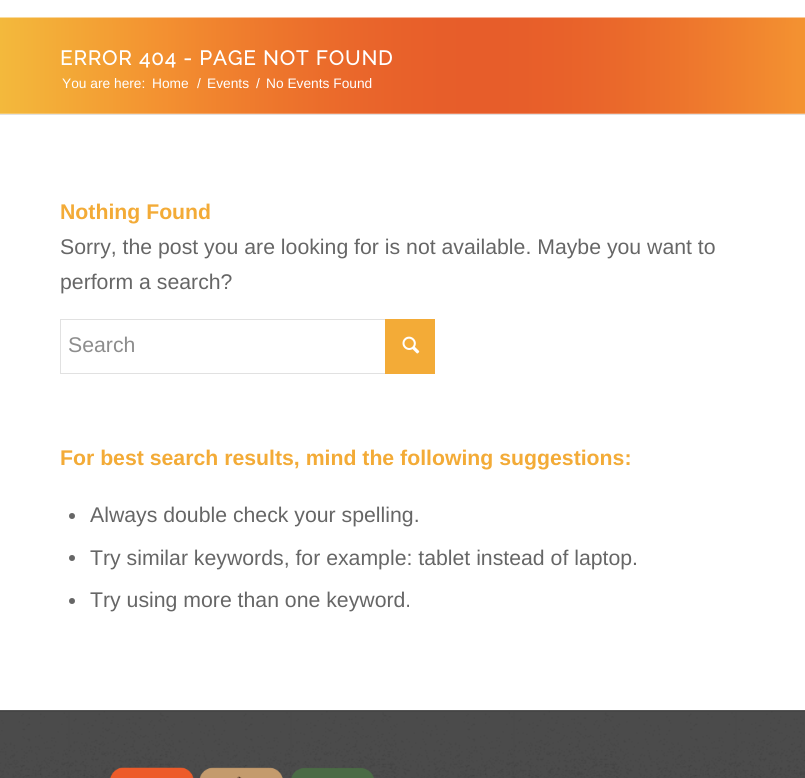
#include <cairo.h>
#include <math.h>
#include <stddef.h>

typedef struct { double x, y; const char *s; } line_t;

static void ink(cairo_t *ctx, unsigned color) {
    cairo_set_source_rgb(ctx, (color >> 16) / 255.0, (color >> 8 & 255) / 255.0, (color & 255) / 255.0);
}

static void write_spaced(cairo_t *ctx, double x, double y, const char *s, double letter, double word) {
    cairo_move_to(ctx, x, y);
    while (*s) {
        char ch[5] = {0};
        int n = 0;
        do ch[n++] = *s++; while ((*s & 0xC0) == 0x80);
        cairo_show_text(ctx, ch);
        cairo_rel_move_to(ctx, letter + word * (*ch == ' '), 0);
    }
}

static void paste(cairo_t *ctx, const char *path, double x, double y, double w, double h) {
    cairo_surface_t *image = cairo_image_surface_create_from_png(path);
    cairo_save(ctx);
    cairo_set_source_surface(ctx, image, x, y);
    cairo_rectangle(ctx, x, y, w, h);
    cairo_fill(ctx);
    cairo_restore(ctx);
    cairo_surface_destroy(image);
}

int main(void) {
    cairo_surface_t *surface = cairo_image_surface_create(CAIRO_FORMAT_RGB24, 805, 778);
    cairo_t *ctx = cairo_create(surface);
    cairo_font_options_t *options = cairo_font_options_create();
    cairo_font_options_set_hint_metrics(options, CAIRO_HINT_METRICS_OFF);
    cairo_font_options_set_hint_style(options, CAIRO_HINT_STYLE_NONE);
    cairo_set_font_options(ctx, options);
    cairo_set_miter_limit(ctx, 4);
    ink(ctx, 0xFFFFFF);
    cairo_paint(ctx);
    paste(ctx, "media/1.png", 0, 17, 805, 7);
    paste(ctx, "media/2.png", 0, 24, 805, 90);
    cairo_select_font_face(ctx, "Raleway", CAIRO_FONT_SLANT_NORMAL, CAIRO_FONT_WEIGHT_BOLD);
    cairo_set_font_size(ctx, 20);
    ink(ctx, 0xFFFFFF);
    write_spaced(ctx, 60, 65, "ERROR 404 - PAGE NOT FOUND", 1.25, 0);
    cairo_select_font_face(ctx, "Liberation Sans", CAIRO_FONT_SLANT_NORMAL, CAIRO_FONT_WEIGHT_NORMAL);
    cairo_set_font_size(ctx, 13.75);
    {
        static const line_t items[] = {
            {62, 88, "You are here:"},
            {152, 88, "Home"},
            {197, 88, "/"},
            {207, 88, "Events"},
            {256, 88, "/"},
            {266, 88, "No Events Found"},
        };
        for (size_t i = 0; i < sizeof items / sizeof *items; i++) {
            cairo_move_to(ctx, items[i].x, items[i].y);
            cairo_show_text(ctx, items[i].s);
        }
    }
    ink(ctx, 0xE1E1E1);
    cairo_rectangle(ctx, 0, 114, 805, 1);
    cairo_fill(ctx);
    cairo_select_font_face(ctx, "Liberation Sans", CAIRO_FONT_SLANT_NORMAL, CAIRO_FONT_WEIGHT_BOLD);
    cairo_set_font_size(ctx, 21.25);
    ink(ctx, 0xF3AB37);
    cairo_move_to(ctx, 60, 219);
    cairo_show_text(ctx, "Nothing Found");
    cairo_select_font_face(ctx, "Liberation Sans", CAIRO_FONT_SLANT_NORMAL, CAIRO_FONT_WEIGHT_NORMAL);
    ink(ctx, 0x666666);
    cairo_move_to(ctx, 60, 254);
    cairo_show_text(ctx, "Sorry, the post you are looking for is not available. Maybe you want to");
    cairo_move_to(ctx, 60, 289);
    cairo_show_text(ctx, "perform a search?");
    cairo_rectangle(ctx, 60.5, 319.5, 374, 54);
    ink(ctx, 0xE1E1E1);
    cairo_set_line_width(ctx, 1);
    cairo_stroke(ctx);
    ink(ctx, 0x8D8D8D);
    cairo_move_to(ctx, 68, 352);
    cairo_show_text(ctx, "Search");
    ink(ctx, 0xF3AB37);
    cairo_rectangle(ctx, 385, 319, 50, 55);
    cairo_fill(ctx);
    paste(ctx, "media/3.png", 402, 336, 18, 18);
    cairo_select_font_face(ctx, "Liberation Sans", CAIRO_FONT_SLANT_NORMAL, CAIRO_FONT_WEIGHT_BOLD);
    cairo_move_to(ctx, 60, 465);
    cairo_show_text(ctx, "For best search results, mind the following suggestions:");
    ink(ctx, 0x666666);
    cairo_new_path(ctx);
    cairo_arc(ctx, 72, 516, 3, 0, 2 * M_PI);
    cairo_fill(ctx);
    cairo_select_font_face(ctx, "Liberation Sans", CAIRO_FONT_SLANT_NORMAL, CAIRO_FONT_WEIGHT_NORMAL);
    cairo_move_to(ctx, 90, 522);
    cairo_show_text(ctx, "Always double check your spelling.");
    cairo_new_path(ctx);
    cairo_arc(ctx, 72, 558, 3, 0, 2 * M_PI);
    cairo_fill(ctx);
    cairo_move_to(ctx, 90, 565);
    cairo_show_text(ctx, "Try similar keywords, for example: tablet instead of laptop.");
    cairo_new_path(ctx);
    cairo_arc(ctx, 72, 601, 3, 0, 2 * M_PI);
    cairo_fill(ctx);
    cairo_move_to(ctx, 90, 607);
    cairo_show_text(ctx, "Try using more than one keyword.");
    ink(ctx, 0x333333);
    cairo_rectangle(ctx, 0, 711, 805, 67);
    cairo_fill(ctx);
    paste(ctx, "media/4.png", 0, 711, 805, 67);
    ink(ctx, 0x555555);
    cairo_rectangle(ctx, 0, 710, 805, 1);
    cairo_fill(ctx);
    paste(ctx, "media/5.png", 110, 767, 264, 11);
    cairo_surface_write_to_png(surface, "image.png");
    cairo_font_options_destroy(options);
    cairo_destroy(ctx);
    cairo_surface_destroy(surface);
    return 0;
}
